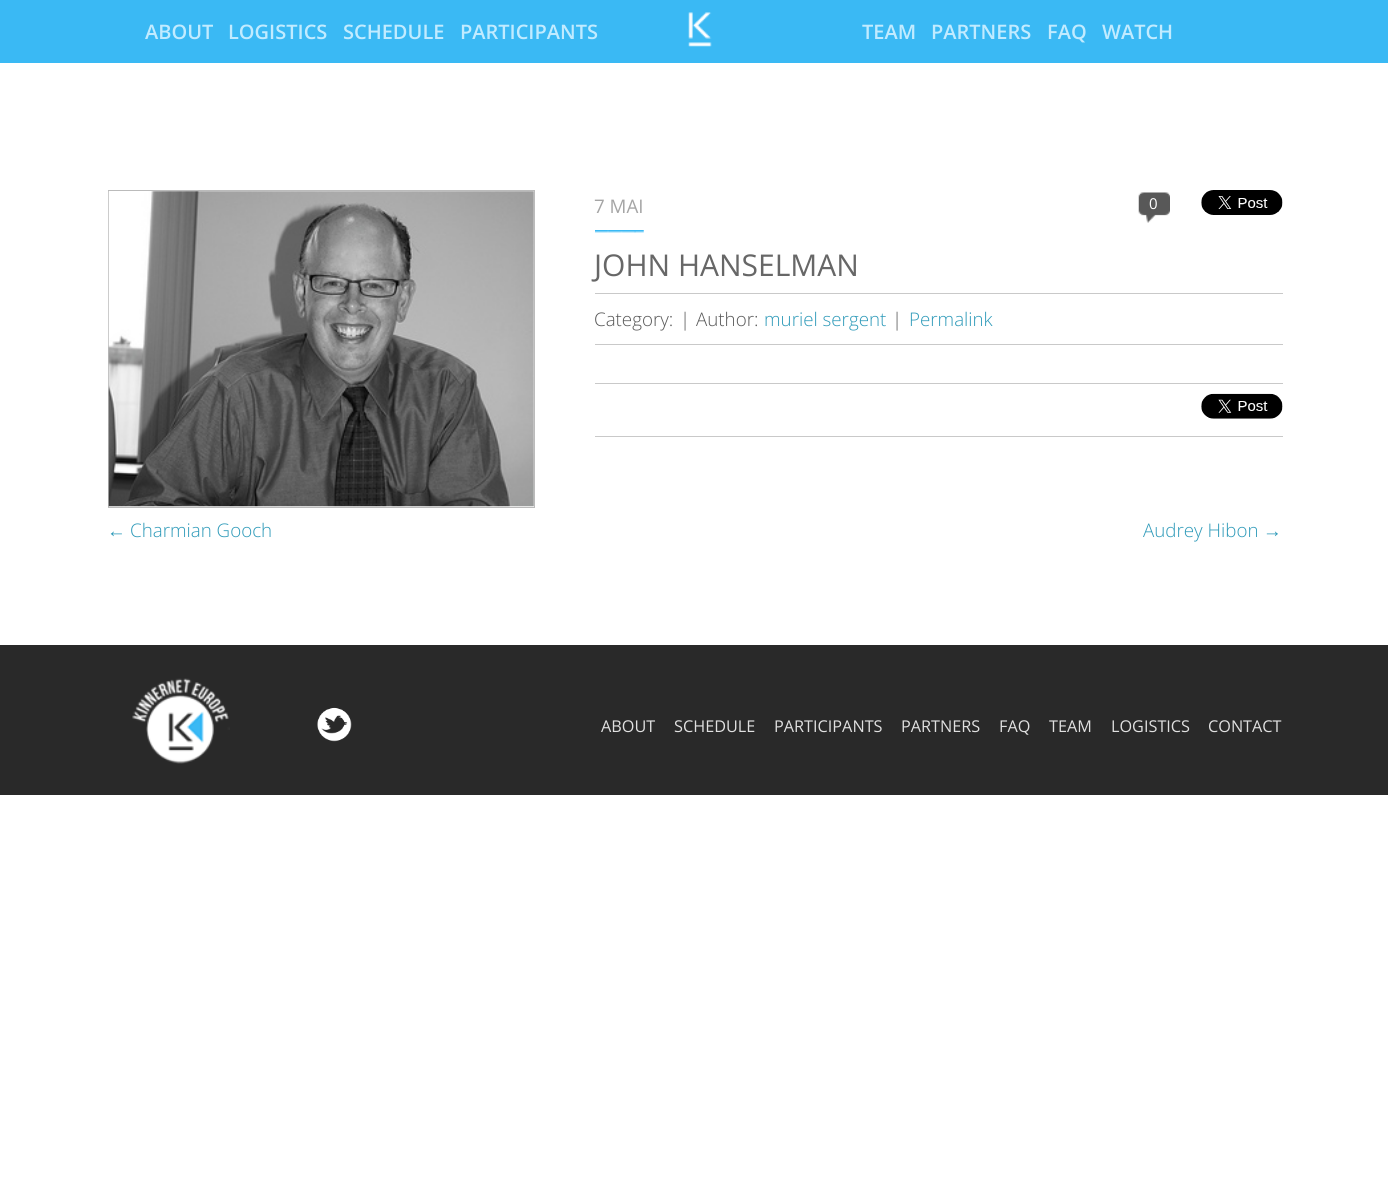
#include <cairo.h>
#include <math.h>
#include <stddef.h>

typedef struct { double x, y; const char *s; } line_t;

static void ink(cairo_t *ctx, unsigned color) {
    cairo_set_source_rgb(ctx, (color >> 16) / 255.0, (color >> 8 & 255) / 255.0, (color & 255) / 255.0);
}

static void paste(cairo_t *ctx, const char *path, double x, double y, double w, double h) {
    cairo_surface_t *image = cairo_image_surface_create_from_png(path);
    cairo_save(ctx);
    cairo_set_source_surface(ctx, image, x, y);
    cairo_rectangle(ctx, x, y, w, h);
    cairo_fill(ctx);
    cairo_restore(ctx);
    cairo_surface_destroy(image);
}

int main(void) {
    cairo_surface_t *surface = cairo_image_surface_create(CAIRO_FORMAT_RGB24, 1388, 1183);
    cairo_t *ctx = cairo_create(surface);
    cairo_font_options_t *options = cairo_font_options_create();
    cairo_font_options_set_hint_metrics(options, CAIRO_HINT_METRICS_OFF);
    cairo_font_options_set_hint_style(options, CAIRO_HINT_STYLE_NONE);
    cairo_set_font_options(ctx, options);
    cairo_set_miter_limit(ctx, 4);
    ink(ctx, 0xFFFFFF);
    cairo_paint(ctx);
    ink(ctx, 0x3AB9F4);
    cairo_rectangle(ctx, 0, 0, 1388, 63);
    cairo_fill(ctx);
    cairo_select_font_face(ctx, "Open Sans SemiBold", CAIRO_FONT_SLANT_NORMAL, CAIRO_FONT_WEIGHT_NORMAL);
    cairo_set_font_size(ctx, 20);
    ink(ctx, 0xC1EBFF);
    {
        static const line_t items[] = {
            {145, 39, "ABOUT"},
            {228, 39, "LOGISTICS"},
            {343, 39, "SCHEDULE"},
            {460, 39, "PARTICIPANTS"},
        };
        for (size_t i = 0; i < sizeof items / sizeof *items; i++) {
            cairo_move_to(ctx, items[i].x, items[i].y);
            cairo_show_text(ctx, items[i].s);
        }
    }
    paste(ctx, "media/1.png", 688, 12, 24, 35);
    {
        static const line_t items[] = {
            {862, 39, "TEAM"},
            {931, 39, "PARTNERS"},
            {1047, 39, "FAQ"},
            {1102, 39, "WATCH"},
        };
        for (size_t i = 0; i < sizeof items / sizeof *items; i++) {
            cairo_move_to(ctx, items[i].x, items[i].y);
            cairo_show_text(ctx, items[i].s);
        }
    }
    cairo_rectangle(ctx, 108.5, 190.5, 426, 317);
    ink(ctx, 0xBBBBBB);
    cairo_set_line_width(ctx, 1);
    cairo_stroke(ctx);
    paste(ctx, "media/2.png", 108, 191, 426, 316);
    paste(ctx, "media/3.png", 595, 230, 49, 3);
    cairo_select_font_face(ctx, "Open Sans", CAIRO_FONT_SLANT_NORMAL, CAIRO_FONT_WEIGHT_NORMAL);
    cairo_set_font_size(ctx, 18.75);
    ink(ctx, 0xA5A5A5);
    cairo_move_to(ctx, 594, 213);
    cairo_show_text(ctx, "7 MAI");
    paste(ctx, "media/4.png", 1138, 192, 32, 31);
    cairo_set_font_size(ctx, 15);
    ink(ctx, 0xFFFFFF);
    cairo_move_to(ctx, 1149, 209);
    cairo_show_text(ctx, "0");
    paste(ctx, "media/5.png", 1201, 190, 82, 25);
    cairo_set_font_size(ctx, 30);
    ink(ctx, 0x676767);
    cairo_move_to(ctx, 594, 276);
    cairo_show_text(ctx, "JOHN HANSELMAN");
    ink(ctx, 0xC9C9C9);
    cairo_rectangle(ctx, 595, 293, 688, 1);
    cairo_fill(ctx);
    cairo_rectangle(ctx, 595, 344, 688, 1);
    cairo_fill(ctx);
    cairo_select_font_face(ctx, "Open Sans Light", CAIRO_FONT_SLANT_NORMAL, CAIRO_FONT_WEIGHT_NORMAL);
    cairo_set_font_size(ctx, 18.75);
    ink(ctx, 0x595959);
    {
        static const line_t items[] = {
            {594, 326, "Category:"},
            {680, 326, "|"},
            {696, 326, "Author:"},
        };
        for (size_t i = 0; i < sizeof items / sizeof *items; i++) {
            cairo_move_to(ctx, items[i].x, items[i].y);
            cairo_show_text(ctx, items[i].s);
        }
    }
    ink(ctx, 0x2E9AB9);
    cairo_move_to(ctx, 764, 326);
    cairo_show_text(ctx, "muriel sergent");
    ink(ctx, 0x595959);
    cairo_move_to(ctx, 892, 326);
    cairo_show_text(ctx, "|");
    ink(ctx, 0x2E9AB9);
    cairo_move_to(ctx, 909, 326);
    cairo_show_text(ctx, "Permalink");
    ink(ctx, 0xC9C9C9);
    cairo_rectangle(ctx, 595, 383, 688, 1);
    cairo_fill(ctx);
    cairo_rectangle(ctx, 595, 436, 688, 1);
    cairo_fill(ctx);
    paste(ctx, "media/6.png", 1201, 393, 82, 26);
    cairo_select_font_face(ctx, "Liberation Sans", CAIRO_FONT_SLANT_NORMAL, CAIRO_FONT_WEIGHT_NORMAL);
    ink(ctx, 0x2E9AB9);
    cairo_move_to(ctx, 107, 537);
    cairo_show_text(ctx, "←");
    cairo_select_font_face(ctx, "Open Sans Light", CAIRO_FONT_SLANT_NORMAL, CAIRO_FONT_WEIGHT_NORMAL);
    cairo_move_to(ctx, 130, 537);
    cairo_show_text(ctx, "Charmian Gooch");
    cairo_move_to(ctx, 1143, 537);
    cairo_show_text(ctx, "Audrey Hibon");
    cairo_select_font_face(ctx, "Liberation Sans", CAIRO_FONT_SLANT_NORMAL, CAIRO_FONT_WEIGHT_NORMAL);
    cairo_move_to(ctx, 1263, 537);
    cairo_show_text(ctx, "→");
    ink(ctx, 0x292929);
    cairo_rectangle(ctx, 0, 645, 1388, 150);
    cairo_fill(ctx);
    paste(ctx, "media/7.png", 132, 678, 98, 86);
    paste(ctx, "media/8.png", 317, 707, 35, 35);
    cairo_select_font_face(ctx, "Open Sans", CAIRO_FONT_SLANT_NORMAL, CAIRO_FONT_WEIGHT_NORMAL);
    cairo_set_font_size(ctx, 16.25);
    ink(ctx, 0xE0E0E0);
    {
        static const line_t items[] = {
            {601, 732, "ABOUT"},
            {674, 732, "SCHEDULE"},
            {774, 732, "PARTICIPANTS"},
            {901, 732, "PARTNERS"},
            {999, 732, "FAQ"},
            {1049, 732, "TEAM"},
            {1111, 732, "LOGISTICS"},
            {1208, 732, "CONTACT"},
        };
        for (size_t i = 0; i < sizeof items / sizeof *items; i++) {
            cairo_move_to(ctx, items[i].x, items[i].y);
            cairo_show_text(ctx, items[i].s);
        }
    }
    cairo_surface_write_to_png(surface, "image.png");
    cairo_font_options_destroy(options);
    cairo_destroy(ctx);
    cairo_surface_destroy(surface);
    return 0;
}
